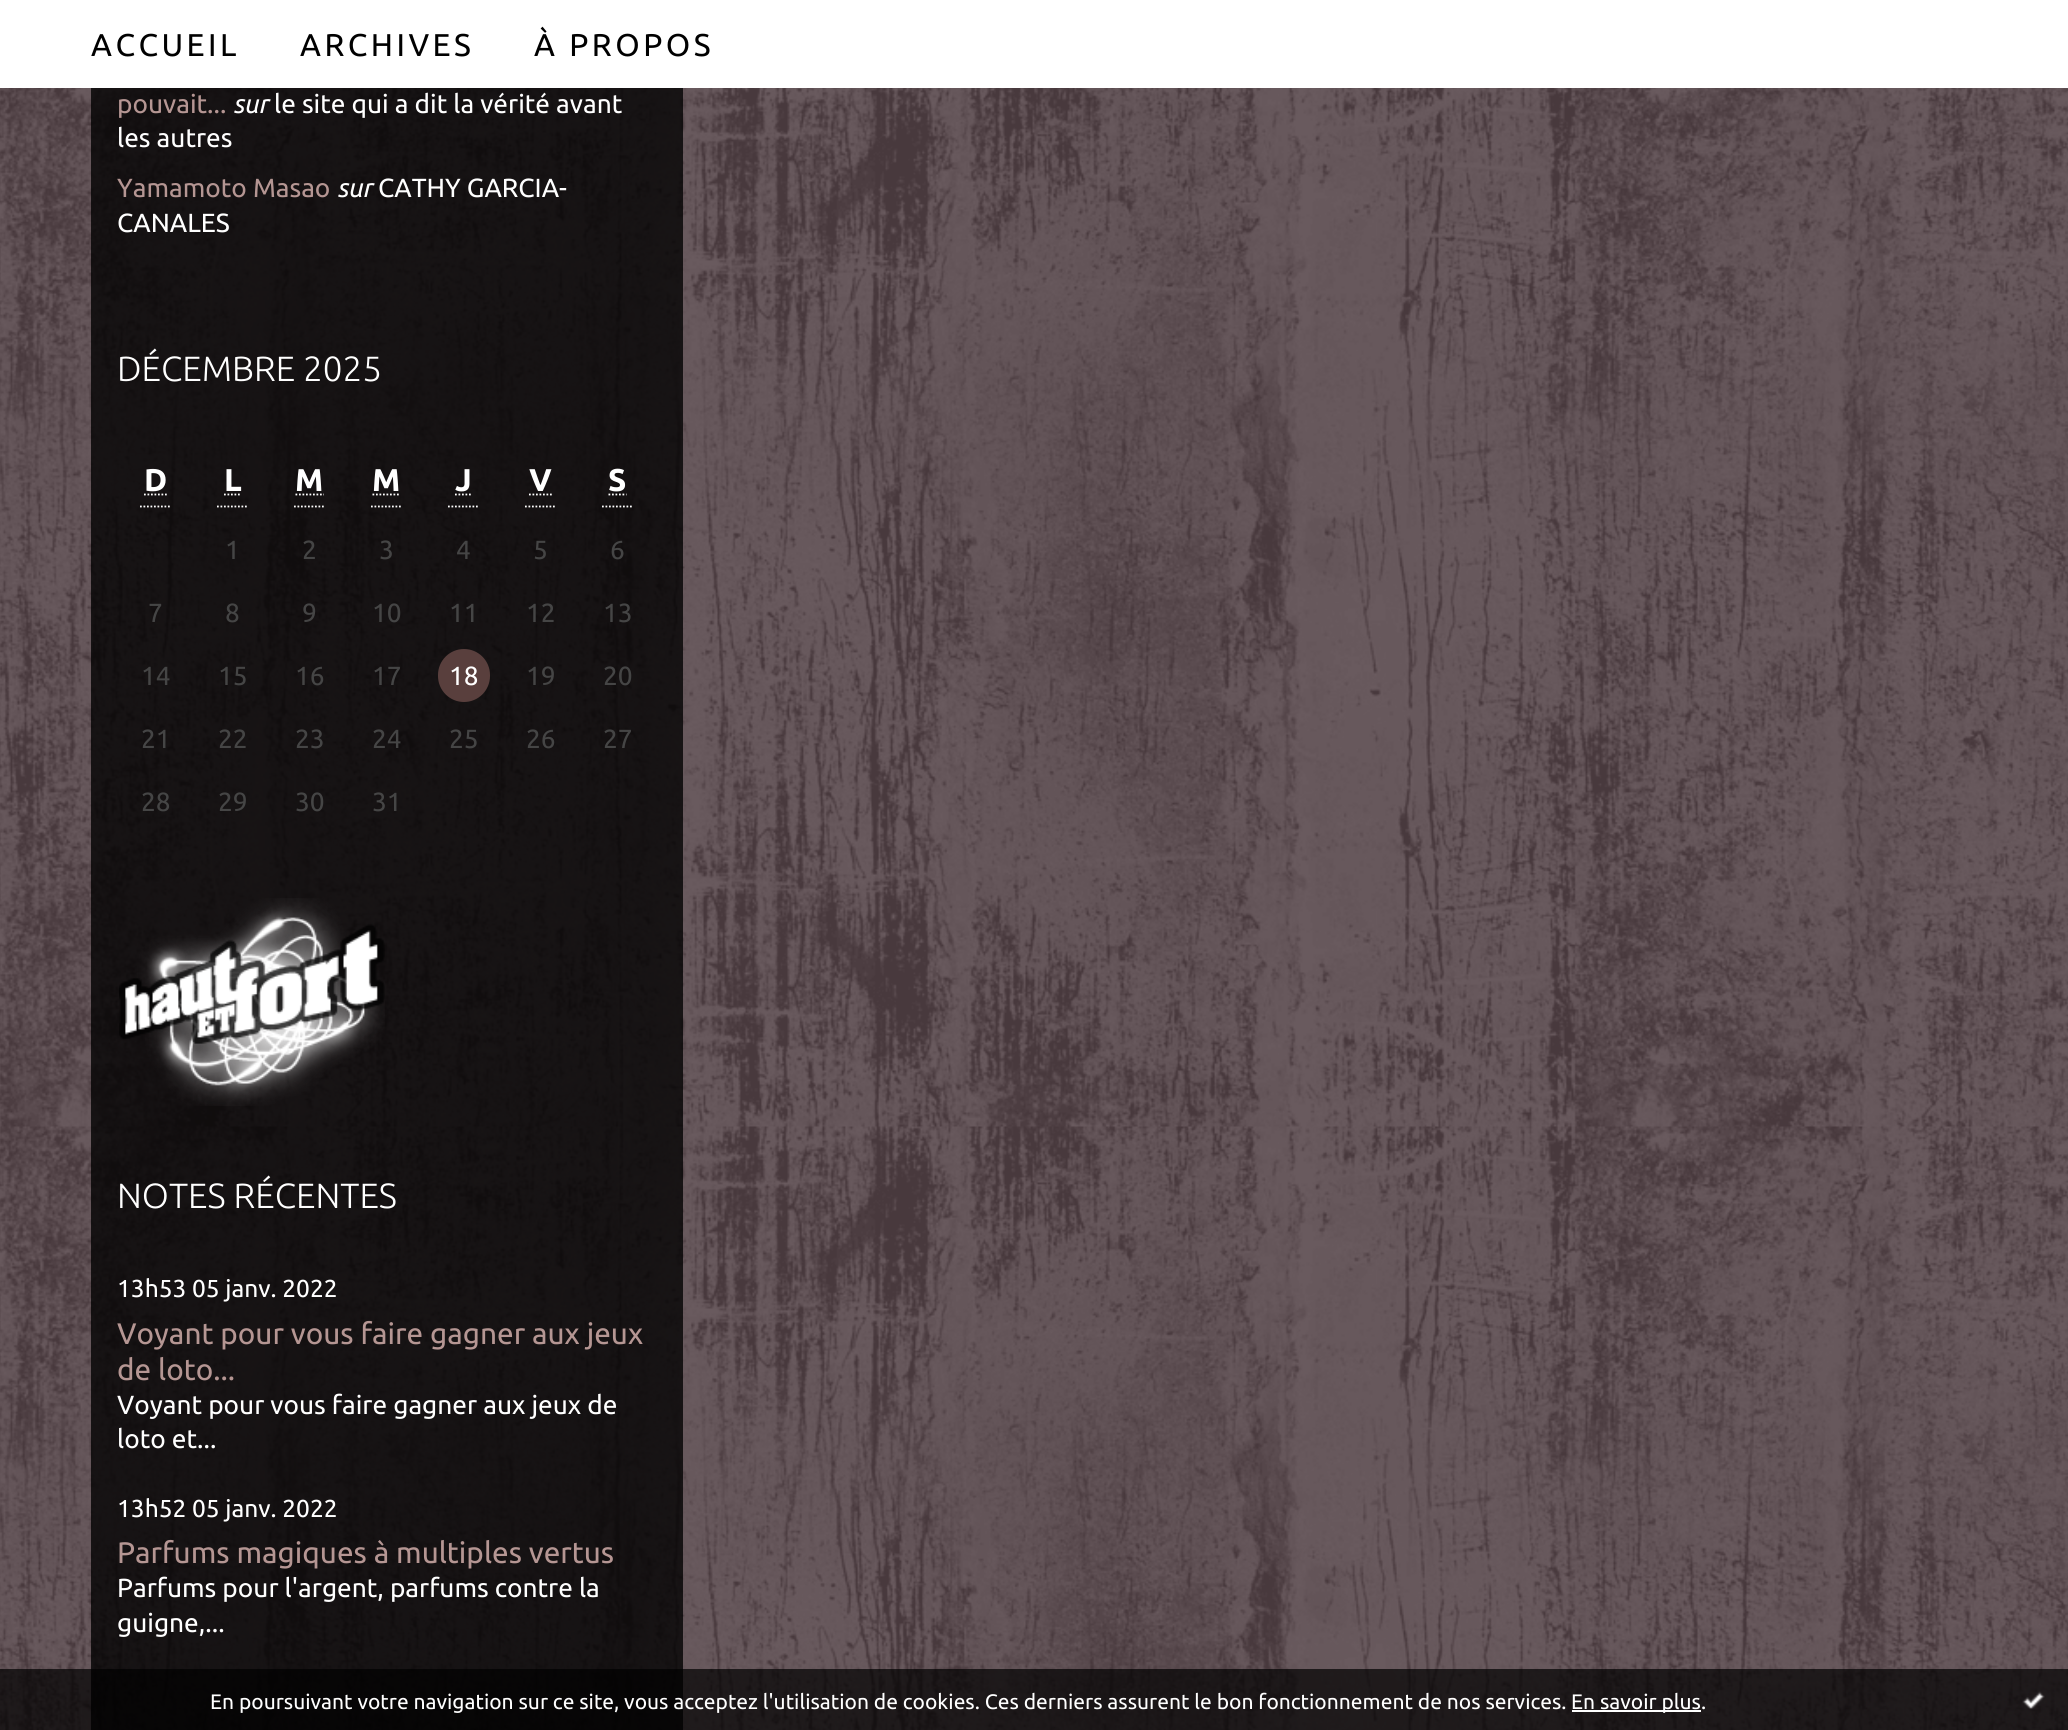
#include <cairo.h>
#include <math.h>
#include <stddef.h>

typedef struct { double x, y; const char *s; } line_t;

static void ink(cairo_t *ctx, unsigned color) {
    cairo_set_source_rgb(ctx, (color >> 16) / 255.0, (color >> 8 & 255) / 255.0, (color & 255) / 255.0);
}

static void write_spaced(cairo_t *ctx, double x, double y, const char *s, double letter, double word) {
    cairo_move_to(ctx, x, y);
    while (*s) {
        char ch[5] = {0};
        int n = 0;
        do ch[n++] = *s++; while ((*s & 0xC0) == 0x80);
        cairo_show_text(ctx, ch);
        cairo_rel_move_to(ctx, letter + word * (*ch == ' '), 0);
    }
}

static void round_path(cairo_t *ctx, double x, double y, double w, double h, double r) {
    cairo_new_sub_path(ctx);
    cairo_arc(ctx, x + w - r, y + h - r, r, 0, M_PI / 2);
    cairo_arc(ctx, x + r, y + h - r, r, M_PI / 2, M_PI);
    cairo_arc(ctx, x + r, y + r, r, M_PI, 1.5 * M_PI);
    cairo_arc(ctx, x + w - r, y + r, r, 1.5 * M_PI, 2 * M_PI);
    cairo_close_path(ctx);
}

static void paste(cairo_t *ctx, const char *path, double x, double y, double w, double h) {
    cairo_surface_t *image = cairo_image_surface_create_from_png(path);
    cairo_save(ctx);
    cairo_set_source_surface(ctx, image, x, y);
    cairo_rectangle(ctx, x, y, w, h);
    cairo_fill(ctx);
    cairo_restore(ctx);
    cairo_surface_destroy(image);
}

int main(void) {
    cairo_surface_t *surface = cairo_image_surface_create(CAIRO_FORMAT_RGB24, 2068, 1730);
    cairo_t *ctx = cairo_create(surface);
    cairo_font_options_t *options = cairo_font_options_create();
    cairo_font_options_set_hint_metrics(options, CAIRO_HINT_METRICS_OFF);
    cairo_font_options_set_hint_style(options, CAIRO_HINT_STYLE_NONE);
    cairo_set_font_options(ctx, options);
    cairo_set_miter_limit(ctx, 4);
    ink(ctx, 0xFFFFFF);
    cairo_paint(ctx);
    paste(ctx, "media/1.png", 0, 88, 2068, 1642);
    cairo_select_font_face(ctx, "Ubuntu", CAIRO_FONT_SLANT_NORMAL, CAIRO_FONT_WEIGHT_NORMAL);
    cairo_set_font_size(ctx, 31.5);
    ink(ctx, 0x000000);
    {
        static const line_t items[] = {
            {91, 56, "ACCUEIL"},
            {300, 56, "ARCHIVES"},
            {534, 56, "À PROPOS"},
        };
        for (size_t i = 0; i < sizeof items / sizeof *items; i++) {
            write_spaced(ctx, items[i].x, items[i].y, items[i].s, 3.5, 0);
        }
    }
    cairo_set_source_rgba(ctx, 0, 0, 0, 0.78);
    cairo_rectangle(ctx, 91, 88, 592, 1642);
    cairo_fill(ctx);
    cairo_set_font_size(ctx, 26.25);
    ink(ctx, 0xB59693);
    cairo_move_to(ctx, 117, 113);
    cairo_show_text(ctx, "pouvait...");
    cairo_select_font_face(ctx, "Ubuntu", CAIRO_FONT_SLANT_ITALIC, CAIRO_FONT_WEIGHT_NORMAL);
    ink(ctx, 0xFFFFFF);
    cairo_move_to(ctx, 233, 113);
    cairo_show_text(ctx, "sur");
    cairo_select_font_face(ctx, "Ubuntu", CAIRO_FONT_SLANT_NORMAL, CAIRO_FONT_WEIGHT_NORMAL);
    cairo_move_to(ctx, 274, 113);
    cairo_show_text(ctx, "le site qui a dit la vérité avant");
    cairo_move_to(ctx, 117, 147);
    cairo_show_text(ctx, "les autres");
    ink(ctx, 0xB59693);
    cairo_move_to(ctx, 117, 197);
    cairo_show_text(ctx, "Yamamoto Masao");
    cairo_select_font_face(ctx, "Ubuntu", CAIRO_FONT_SLANT_ITALIC, CAIRO_FONT_WEIGHT_NORMAL);
    ink(ctx, 0xFFFFFF);
    cairo_move_to(ctx, 337, 197);
    cairo_show_text(ctx, "sur");
    cairo_select_font_face(ctx, "Ubuntu", CAIRO_FONT_SLANT_NORMAL, CAIRO_FONT_WEIGHT_NORMAL);
    cairo_move_to(ctx, 378, 197);
    cairo_show_text(ctx, "CATHY GARCIA-");
    cairo_move_to(ctx, 117, 232);
    cairo_show_text(ctx, "CANALES");
    cairo_select_font_face(ctx, "Ubuntu Light", CAIRO_FONT_SLANT_NORMAL, CAIRO_FONT_WEIGHT_NORMAL);
    cairo_set_font_size(ctx, 35);
    cairo_move_to(ctx, 117, 381);
    cairo_show_text(ctx, "DÉCEMBRE 2025");
    cairo_new_path(ctx);
    cairo_move_to(ctx, 140, 506.5);
    cairo_line_to(ctx, 171.5, 506.5);
    cairo_set_line_width(ctx, 1.8);
    cairo_set_dash(ctx, (double[]){1.75, 1.75}, 2, 0);
    cairo_stroke(ctx);
    cairo_select_font_face(ctx, "Ubuntu", CAIRO_FONT_SLANT_NORMAL, CAIRO_FONT_WEIGHT_BOLD);
    cairo_set_font_size(ctx, 31.5);
    cairo_move_to(ctx, 144, 491);
    cairo_show_text(ctx, "D");
    cairo_new_path(ctx);
    cairo_move_to(ctx, 144, 494.5);
    cairo_line_to(ctx, 167.5, 494.5);
    cairo_stroke(ctx);
    cairo_new_path(ctx);
    cairo_move_to(ctx, 217, 506.5);
    cairo_line_to(ctx, 248.5, 506.5);
    cairo_stroke(ctx);
    cairo_move_to(ctx, 224, 491);
    cairo_show_text(ctx, "L");
    cairo_new_path(ctx);
    cairo_move_to(ctx, 224, 494.5);
    cairo_line_to(ctx, 241.5, 494.5);
    cairo_stroke(ctx);
    cairo_new_path(ctx);
    cairo_move_to(ctx, 294, 506.5);
    cairo_line_to(ctx, 325.5, 506.5);
    cairo_stroke(ctx);
    cairo_move_to(ctx, 295, 491);
    cairo_show_text(ctx, "M");
    cairo_new_path(ctx);
    cairo_move_to(ctx, 295.5, 494.5);
    cairo_line_to(ctx, 324, 494.5);
    cairo_stroke(ctx);
    cairo_new_path(ctx);
    cairo_move_to(ctx, 371, 506.5);
    cairo_line_to(ctx, 402.5, 506.5);
    cairo_stroke(ctx);
    cairo_move_to(ctx, 372, 491);
    cairo_show_text(ctx, "M");
    cairo_new_path(ctx);
    cairo_move_to(ctx, 372.5, 494.5);
    cairo_line_to(ctx, 400.5, 494.5);
    cairo_stroke(ctx);
    cairo_new_path(ctx);
    cairo_move_to(ctx, 448, 506.5);
    cairo_line_to(ctx, 479.5, 506.5);
    cairo_stroke(ctx);
    cairo_move_to(ctx, 455, 491);
    cairo_show_text(ctx, "J");
    cairo_new_path(ctx);
    cairo_move_to(ctx, 455, 494.5);
    cairo_line_to(ctx, 472, 494.5);
    cairo_stroke(ctx);
    cairo_new_path(ctx);
    cairo_move_to(ctx, 525, 506.5);
    cairo_line_to(ctx, 556.5, 506.5);
    cairo_stroke(ctx);
    cairo_move_to(ctx, 529, 491);
    cairo_show_text(ctx, "V");
    cairo_new_path(ctx);
    cairo_move_to(ctx, 529, 494.5);
    cairo_line_to(ctx, 552, 494.5);
    cairo_stroke(ctx);
    cairo_new_path(ctx);
    cairo_move_to(ctx, 602, 506.5);
    cairo_line_to(ctx, 633.5, 506.5);
    cairo_stroke(ctx);
    cairo_move_to(ctx, 608, 491);
    cairo_show_text(ctx, "S");
    cairo_new_path(ctx);
    cairo_move_to(ctx, 608.5, 494.5);
    cairo_line_to(ctx, 626.5, 494.5);
    cairo_stroke(ctx);
    cairo_select_font_face(ctx, "Ubuntu", CAIRO_FONT_SLANT_NORMAL, CAIRO_FONT_WEIGHT_NORMAL);
    cairo_set_font_size(ctx, 26.25);
    ink(ctx, 0x454545);
    {
        static const line_t items[] = {
            {225, 559, "1"},
            {302, 559, "2"},
            {379, 559, "3"},
            {456, 559, "4"},
            {533, 559, "5"},
            {610, 559, "6"},
            {148, 622, "7"},
            {225, 622, "8"},
            {302, 622, "9"},
            {372, 622, "10"},
            {449, 622, "11"},
            {526, 622, "12"},
            {603, 622, "13"},
            {141, 685, "14"},
            {218, 685, "15"},
            {295, 685, "16"},
            {372, 685, "17"},
        };
        for (size_t i = 0; i < sizeof items / sizeof *items; i++) {
            cairo_move_to(ctx, items[i].x, items[i].y);
            cairo_show_text(ctx, items[i].s);
        }
    }
    ink(ctx, 0x593F3D);
    round_path(ctx, 438, 649, 52, 53, 26);
    cairo_fill(ctx);
    ink(ctx, 0xFFFFFF);
    cairo_move_to(ctx, 449, 685);
    cairo_show_text(ctx, "18");
    ink(ctx, 0x454545);
    {
        static const line_t items[] = {
            {526, 685, "19"},
            {603, 685, "20"},
            {141, 748, "21"},
            {218, 748, "22"},
            {295, 748, "23"},
            {372, 748, "24"},
            {449, 748, "25"},
            {526, 748, "26"},
            {603, 748, "27"},
            {141, 811, "28"},
            {218, 811, "29"},
            {295, 811, "30"},
            {372, 811, "31"},
        };
        for (size_t i = 0; i < sizeof items / sizeof *items; i++) {
            cairo_move_to(ctx, items[i].x, items[i].y);
            cairo_show_text(ctx, items[i].s);
        }
    }
    paste(ctx, "media/2.png", 119, 898, 266, 208);
    cairo_select_font_face(ctx, "Ubuntu Light", CAIRO_FONT_SLANT_NORMAL, CAIRO_FONT_WEIGHT_NORMAL);
    cairo_set_font_size(ctx, 35);
    ink(ctx, 0xFFFFFF);
    cairo_move_to(ctx, 117, 1208);
    cairo_show_text(ctx, "NOTES RÉCENTES");
    cairo_select_font_face(ctx, "Ubuntu", CAIRO_FONT_SLANT_NORMAL, CAIRO_FONT_WEIGHT_NORMAL);
    cairo_set_font_size(ctx, 24.5);
    cairo_move_to(ctx, 117, 1297);
    cairo_show_text(ctx, "13h53 05 janv. 2022");
    cairo_set_font_size(ctx, 29.75);
    ink(ctx, 0xB59693);
    cairo_move_to(ctx, 117, 1344);
    cairo_show_text(ctx, "Voyant pour vous faire gagner aux jeux");
    cairo_move_to(ctx, 117, 1380);
    cairo_show_text(ctx, "de loto...");
    cairo_set_font_size(ctx, 26.25);
    ink(ctx, 0xFFFFFF);
    cairo_move_to(ctx, 117, 1414);
    cairo_show_text(ctx, "Voyant pour vous faire gagner aux jeux de");
    cairo_move_to(ctx, 117, 1448);
    cairo_show_text(ctx, "loto et...");
    cairo_set_font_size(ctx, 24.5);
    cairo_move_to(ctx, 117, 1517);
    cairo_show_text(ctx, "13h52 05 janv. 2022");
    cairo_set_font_size(ctx, 29.75);
    ink(ctx, 0xB59693);
    cairo_move_to(ctx, 117, 1563);
    cairo_show_text(ctx, "Parfums magiques à multiples vertus");
    cairo_set_font_size(ctx, 26.25);
    ink(ctx, 0xFFFFFF);
    cairo_move_to(ctx, 117, 1597);
    cairo_show_text(ctx, "Parfums pour l'argent, parfums contre la");
    cairo_move_to(ctx, 117, 1632);
    cairo_show_text(ctx, "guigne,...");
    cairo_set_source_rgba(ctx, 0, 0, 0, 0.7);
    cairo_rectangle(ctx, 0, 1669, 2068, 61);
    cairo_fill(ctx);
    cairo_set_font_size(ctx, 21);
    ink(ctx, 0xFFFFFF);
    cairo_move_to(ctx, 210, 1709);
    cairo_show_text(ctx, "En poursuivant votre navigation sur ce site, vous acceptez l'utilisation de cookies. Ces derniers assurent le bon fonctionnement de nos services.");
    cairo_rectangle(ctx, 1572, 1710, 129, 2);
    cairo_fill(ctx);
    cairo_move_to(ctx, 1571, 1709);
    cairo_show_text(ctx, "En savoir plus.");
    paste(ctx, "media/3.png", 2022, 1691, 23, 19);
    cairo_surface_write_to_png(surface, "image.png");
    cairo_font_options_destroy(options);
    cairo_destroy(ctx);
    cairo_surface_destroy(surface);
    return 0;
}
